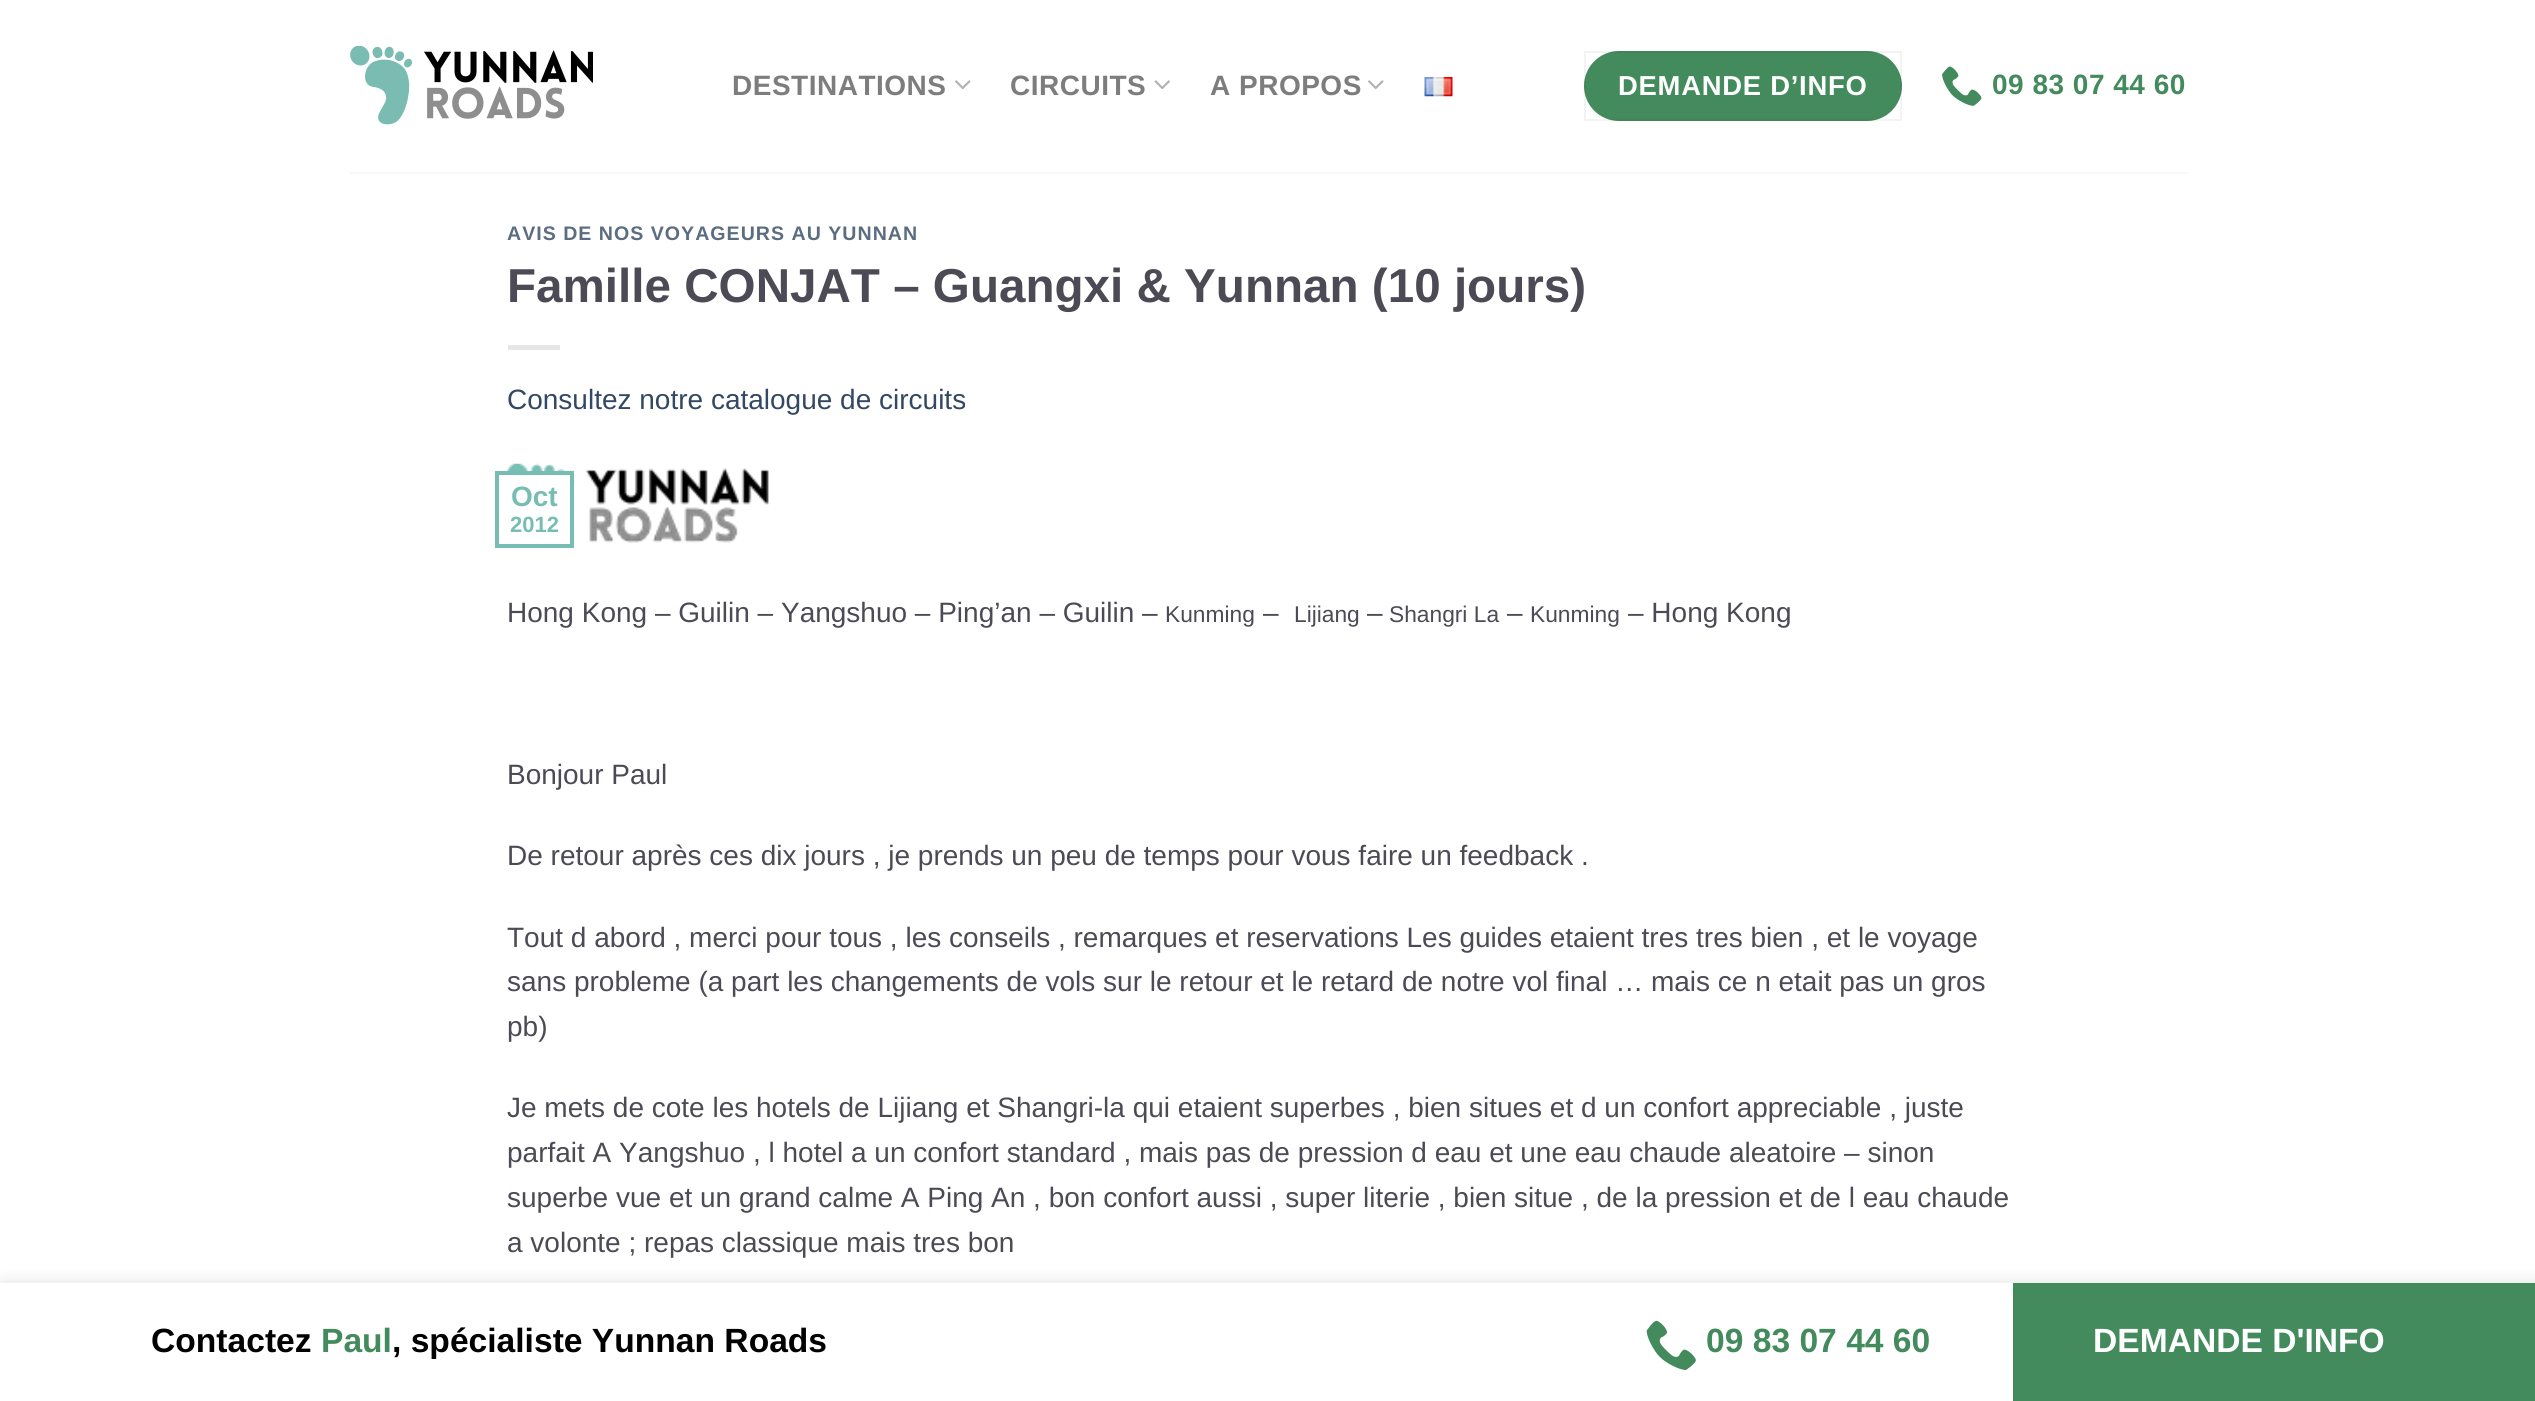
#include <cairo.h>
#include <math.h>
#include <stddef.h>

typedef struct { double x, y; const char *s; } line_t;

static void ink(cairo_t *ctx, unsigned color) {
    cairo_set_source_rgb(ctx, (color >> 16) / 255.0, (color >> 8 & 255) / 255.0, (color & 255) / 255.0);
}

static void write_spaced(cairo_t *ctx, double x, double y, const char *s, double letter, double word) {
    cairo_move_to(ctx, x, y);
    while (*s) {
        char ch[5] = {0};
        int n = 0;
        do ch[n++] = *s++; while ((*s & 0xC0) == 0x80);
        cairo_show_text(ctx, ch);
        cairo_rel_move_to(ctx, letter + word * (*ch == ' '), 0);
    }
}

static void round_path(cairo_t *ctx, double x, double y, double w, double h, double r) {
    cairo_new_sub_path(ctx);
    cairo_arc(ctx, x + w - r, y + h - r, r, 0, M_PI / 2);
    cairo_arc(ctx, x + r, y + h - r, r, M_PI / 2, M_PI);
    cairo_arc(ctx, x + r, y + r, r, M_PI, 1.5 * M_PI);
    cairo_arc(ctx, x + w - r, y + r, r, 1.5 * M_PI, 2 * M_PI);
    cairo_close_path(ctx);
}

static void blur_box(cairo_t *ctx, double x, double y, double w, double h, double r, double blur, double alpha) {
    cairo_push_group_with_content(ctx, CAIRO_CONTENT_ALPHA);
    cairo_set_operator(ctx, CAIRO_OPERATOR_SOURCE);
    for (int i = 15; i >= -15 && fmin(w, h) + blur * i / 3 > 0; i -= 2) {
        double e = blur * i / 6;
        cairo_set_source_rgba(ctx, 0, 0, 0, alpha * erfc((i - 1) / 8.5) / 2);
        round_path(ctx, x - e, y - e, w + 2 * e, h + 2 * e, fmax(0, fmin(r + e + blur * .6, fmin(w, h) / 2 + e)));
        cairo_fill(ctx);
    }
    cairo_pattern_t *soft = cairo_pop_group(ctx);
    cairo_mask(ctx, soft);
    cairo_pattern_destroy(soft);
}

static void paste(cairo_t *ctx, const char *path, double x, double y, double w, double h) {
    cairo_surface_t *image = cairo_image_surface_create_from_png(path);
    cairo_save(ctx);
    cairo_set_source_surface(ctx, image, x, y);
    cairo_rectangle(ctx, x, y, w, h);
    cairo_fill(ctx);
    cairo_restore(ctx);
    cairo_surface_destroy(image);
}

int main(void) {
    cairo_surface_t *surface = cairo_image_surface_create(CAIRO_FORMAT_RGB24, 2535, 1401);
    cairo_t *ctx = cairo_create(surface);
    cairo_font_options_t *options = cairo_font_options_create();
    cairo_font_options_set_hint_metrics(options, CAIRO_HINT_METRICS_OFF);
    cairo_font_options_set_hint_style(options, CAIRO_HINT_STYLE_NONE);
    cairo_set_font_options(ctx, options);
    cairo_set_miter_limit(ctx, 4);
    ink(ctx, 0xFFFFFF);
    cairo_paint(ctx);
    paste(ctx, "media/1.png", 350, 46, 243, 79);
    cairo_select_font_face(ctx, "Liberation Sans", CAIRO_FONT_SLANT_NORMAL, CAIRO_FONT_WEIGHT_BOLD);
    cairo_set_font_size(ctx, 28);
    ink(ctx, 0x7D7D7D);
    write_spaced(ctx, 732, 95, "DESTINATIONS", 0.5, 0);
    paste(ctx, "media/2.png", 955, 80, 16, 10);
    write_spaced(ctx, 1010, 95, "CIRCUITS", 0.5, 0);
    paste(ctx, "media/3.png", 1154, 80, 16, 10);
    write_spaced(ctx, 1210, 95, "A PROPOS", 0.5, 0);
    paste(ctx, "media/2.png", 1368, 80, 16, 10);
    paste(ctx, "media/4.png", 1424, 77, 29, 20);
    ink(ctx, 0x438B5C);
    round_path(ctx, 1584, 51, 318, 70, 35);
    cairo_fill(ctx);
    cairo_rectangle(ctx, 1585, 52, 316, 68);
    cairo_set_source_rgba(ctx, 0, 0, 0, 0.05);
    cairo_stroke(ctx);
    cairo_set_font_size(ctx, 27.4);
    ink(ctx, 0xFFFFFF);
    write_spaced(ctx, 1618, 95, "DEMANDE D’INFO", 0.75, 0);
    paste(ctx, "media/5.png", 1942, 66, 40, 40);
    cairo_set_font_size(ctx, 28);
    ink(ctx, 0x438B5C);
    write_spaced(ctx, 1992, 94, "09 83 07 44 60", 0.5, 0);
    ink(ctx, 0xF8F8F8);
    cairo_rectangle(ctx, 350, 172, 1838, 2);
    cairo_fill(ctx);
    cairo_set_font_size(ctx, 19.6);
    ink(ctx, 0x5C6D81);
    write_spaced(ctx, 507, 240, "AVIS DE NOS VOYAGEURS AU YUNNAN", 1, 0);
    cairo_set_font_size(ctx, 47.6);
    ink(ctx, 0x4C4B55);
    cairo_move_to(ctx, 507, 302);
    cairo_show_text(ctx, "Famille CONJAT – Guangxi & Yunnan (10 jours)");
    ink(ctx, 0xE6E6E6);
    cairo_rectangle(ctx, 508, 345, 52, 5);
    cairo_fill(ctx);
    cairo_select_font_face(ctx, "Liberation Sans", CAIRO_FONT_SLANT_NORMAL, CAIRO_FONT_WEIGHT_NORMAL);
    cairo_set_font_size(ctx, 28);
    ink(ctx, 0x334862);
    cairo_move_to(ctx, 507, 409);
    cairo_show_text(ctx, "Consultez notre catalogue de circuits");
    paste(ctx, "media/6.png", 507, 463, 262, 80);
    ink(ctx, 0xFFFFFF);
    cairo_rectangle(ctx, 507, 475, 63, 68);
    cairo_fill(ctx);
    cairo_rectangle(ctx, 497, 473, 75, 73);
    ink(ctx, 0x77BDB3);
    cairo_set_line_width(ctx, 4);
    cairo_stroke(ctx);
    cairo_select_font_face(ctx, "Liberation Sans", CAIRO_FONT_SLANT_NORMAL, CAIRO_FONT_WEIGHT_BOLD);
    cairo_move_to(ctx, 511, 506);
    cairo_show_text(ctx, "Oct");
    cairo_set_font_size(ctx, 22);
    cairo_move_to(ctx, 510, 532);
    cairo_show_text(ctx, "2012");
    cairo_select_font_face(ctx, "Liberation Sans", CAIRO_FONT_SLANT_NORMAL, CAIRO_FONT_WEIGHT_NORMAL);
    cairo_set_font_size(ctx, 28);
    ink(ctx, 0x4C4B55);
    cairo_move_to(ctx, 507, 622);
    cairo_show_text(ctx, "Hong Kong – Guilin – Yangshuo – Ping’an – Guilin –");
    cairo_set_font_size(ctx, 22.75);
    cairo_move_to(ctx, 1165, 622);
    cairo_show_text(ctx, "Kunming");
    cairo_set_font_size(ctx, 28);
    cairo_move_to(ctx, 1263, 622);
    cairo_show_text(ctx, "–");
    cairo_set_font_size(ctx, 22.75);
    cairo_move_to(ctx, 1294, 622);
    cairo_show_text(ctx, "Lijiang");
    cairo_set_font_size(ctx, 28);
    cairo_move_to(ctx, 1367, 622);
    cairo_show_text(ctx, "–");
    cairo_set_font_size(ctx, 22.75);
    cairo_move_to(ctx, 1389, 622);
    cairo_show_text(ctx, "Shangri La");
    cairo_set_font_size(ctx, 28);
    cairo_move_to(ctx, 1507, 622);
    cairo_show_text(ctx, "–");
    cairo_set_font_size(ctx, 22.75);
    cairo_move_to(ctx, 1530, 622);
    cairo_show_text(ctx, "Kunming");
    cairo_set_font_size(ctx, 28);
    {
        static const line_t items[] = {
            {1628, 622, "– Hong Kong"},
            {507, 784, "Bonjour Paul"},
            {507, 865, "De retour après ces dix jours , je prends un peu de temps pour vous faire un feedback ."},
            {507, 947, "Tout d abord , merci pour tous , les conseils , remarques et reservations Les guides etaient tres tres bien , et le voyage"},
            {507, 991, "sans probleme (a part les changements de vols sur le retour et le retard de notre vol final … mais ce n etait pas un gros"},
            {507, 1036, "pb)"},
            {507, 1117, "Je mets de cote les hotels de Lijiang et Shangri-la qui etaient superbes , bien situes et d un confort appreciable , juste"},
            {507, 1162, "parfait A Yangshuo , l hotel a un confort standard , mais pas de pression d eau et une eau chaude aleatoire – sinon"},
            {507, 1207, "superbe vue et un grand calme A Ping An , bon confort aussi , super literie , bien situe , de la pression et de l eau chaude"},
            {507, 1252, "a volonte ; repas classique mais tres bon"},
        };
        for (size_t i = 0; i < sizeof items / sizeof *items; i++) {
            cairo_move_to(ctx, items[i].x, items[i].y);
            cairo_show_text(ctx, items[i].s);
        }
    }
    ink(ctx, 0x000000);
    blur_box(ctx, 2, 1285, 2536, 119, 0, 9, 0.15);
    ink(ctx, 0xFFFFFF);
    cairo_rectangle(ctx, 0, 1283, 2013, 118);
    cairo_fill(ctx);
    cairo_select_font_face(ctx, "Liberation Sans", CAIRO_FONT_SLANT_NORMAL, CAIRO_FONT_WEIGHT_BOLD);
    cairo_set_font_size(ctx, 33.6);
    ink(ctx, 0x000000);
    cairo_move_to(ctx, 151, 1352);
    cairo_show_text(ctx, "Contactez");
    ink(ctx, 0x438B5C);
    cairo_move_to(ctx, 321, 1352);
    cairo_show_text(ctx, "Paul");
    ink(ctx, 0x000000);
    cairo_move_to(ctx, 392, 1352);
    cairo_show_text(ctx, ", spécialiste Yunnan Roads");
    paste(ctx, "media/7.png", 1646, 1320, 50, 50);
    ink(ctx, 0x438B5C);
    cairo_move_to(ctx, 1706, 1352);
    cairo_show_text(ctx, "09 83 07 44 60");
    cairo_rectangle(ctx, 2013, 1283, 522, 118);
    cairo_fill(ctx);
    ink(ctx, 0xFFFFFF);
    cairo_move_to(ctx, 2093, 1352);
    cairo_show_text(ctx, "DEMANDE D'INFO");
    cairo_surface_write_to_png(surface, "image.png");
    cairo_font_options_destroy(options);
    cairo_destroy(ctx);
    cairo_surface_destroy(surface);
    return 0;
}
